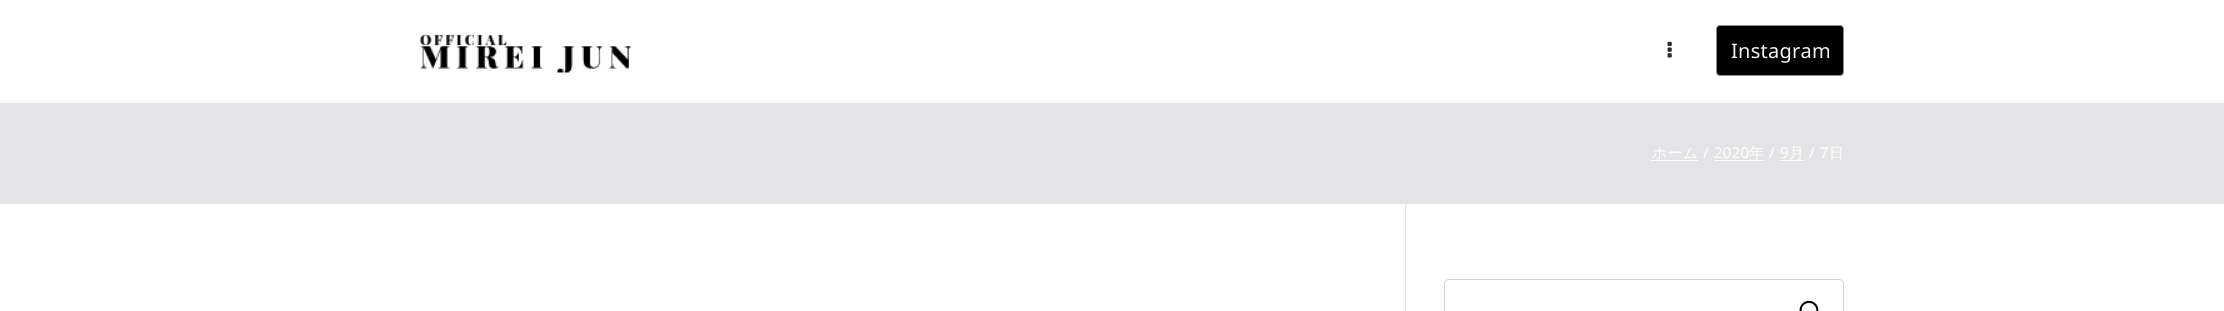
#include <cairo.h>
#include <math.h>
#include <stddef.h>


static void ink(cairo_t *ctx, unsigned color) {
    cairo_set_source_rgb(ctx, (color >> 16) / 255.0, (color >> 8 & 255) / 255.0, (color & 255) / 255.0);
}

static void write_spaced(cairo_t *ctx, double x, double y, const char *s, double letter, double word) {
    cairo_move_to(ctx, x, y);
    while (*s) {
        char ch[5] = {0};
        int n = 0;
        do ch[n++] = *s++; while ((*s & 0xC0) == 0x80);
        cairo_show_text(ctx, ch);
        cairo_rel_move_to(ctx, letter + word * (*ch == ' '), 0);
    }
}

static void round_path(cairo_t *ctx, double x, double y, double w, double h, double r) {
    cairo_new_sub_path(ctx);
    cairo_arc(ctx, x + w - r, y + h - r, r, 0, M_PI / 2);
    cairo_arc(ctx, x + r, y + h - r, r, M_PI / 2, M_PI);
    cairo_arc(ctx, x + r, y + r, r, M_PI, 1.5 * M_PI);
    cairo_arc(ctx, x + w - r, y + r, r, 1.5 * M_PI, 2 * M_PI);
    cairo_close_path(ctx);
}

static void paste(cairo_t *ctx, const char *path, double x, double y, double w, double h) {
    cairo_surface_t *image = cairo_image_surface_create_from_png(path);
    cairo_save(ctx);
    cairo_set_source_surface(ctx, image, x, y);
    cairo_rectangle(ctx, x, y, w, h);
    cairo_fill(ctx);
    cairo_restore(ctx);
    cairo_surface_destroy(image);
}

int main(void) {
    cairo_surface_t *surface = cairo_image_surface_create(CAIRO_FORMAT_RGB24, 2224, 311);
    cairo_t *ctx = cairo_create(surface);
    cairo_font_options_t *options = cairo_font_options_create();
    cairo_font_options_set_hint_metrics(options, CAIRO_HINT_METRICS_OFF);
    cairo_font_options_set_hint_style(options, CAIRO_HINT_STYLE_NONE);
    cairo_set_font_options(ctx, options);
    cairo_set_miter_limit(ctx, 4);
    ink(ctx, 0xFAFAFA);
    cairo_paint(ctx);
    ink(ctx, 0xF7F7F8);
    cairo_rectangle(ctx, 0, 101, 2224, 1);
    cairo_fill(ctx);
    ink(ctx, 0xFFFFFF);
    cairo_rectangle(ctx, 0, 0, 2224, 101);
    cairo_fill(ctx);
    paste(ctx, "media/1.png", 419, 33, 213, 40);
    paste(ctx, "media/2.png", 1667, 41, 5, 17);
    ink(ctx, 0x000000);
    round_path(ctx, 1716.5, 25.5, 127, 50, 3.5);
    cairo_fill_preserve(ctx);
    ink(ctx, 0x919191);
    cairo_set_line_width(ctx, 1);
    cairo_stroke(ctx);
    cairo_select_font_face(ctx, "Noto Sans", CAIRO_FONT_SLANT_NORMAL, CAIRO_FONT_WEIGHT_NORMAL);
    cairo_set_font_size(ctx, 20);
    ink(ctx, 0xF4F4F4);
    write_spaced(ctx, 1731, 58, "Instagram", 0.25, 0);
    ink(ctx, 0xE4E4E7);
    cairo_rectangle(ctx, 0, 103, 2224, 101);
    cairo_fill(ctx);
    cairo_select_font_face(ctx, "WenQuanYi Zen Hei Medium", CAIRO_FONT_SLANT_NORMAL, CAIRO_FONT_WEIGHT_NORMAL);
    cairo_set_font_size(ctx, 15);
    ink(ctx, 0xFFFFFF);
    write_spaced(ctx, 1652, 158, "ホーム", 0.25, 0);
    cairo_rectangle(ctx, 1651, 160, 47, 1);
    cairo_fill(ctx);
    cairo_select_font_face(ctx, "Noto Sans", CAIRO_FONT_SLANT_NORMAL, CAIRO_FONT_WEIGHT_NORMAL);
    write_spaced(ctx, 1703, 158, "/", 0.25, 0);
    write_spaced(ctx, 1714, 158, "2020", 0.25, 0);
    cairo_rectangle(ctx, 1714, 160, 50, 1);
    cairo_fill(ctx);
    cairo_select_font_face(ctx, "WenQuanYi Zen Hei Medium", CAIRO_FONT_SLANT_NORMAL, CAIRO_FONT_WEIGHT_NORMAL);
    write_spaced(ctx, 1749, 158, "年", 0.25, 0);
    cairo_select_font_face(ctx, "Noto Sans", CAIRO_FONT_SLANT_NORMAL, CAIRO_FONT_WEIGHT_NORMAL);
    write_spaced(ctx, 1769, 158, "/", 0.25, 0);
    write_spaced(ctx, 1780, 158, "9", 0.25, 0);
    cairo_rectangle(ctx, 1780, 160, 24, 1);
    cairo_fill(ctx);
    cairo_select_font_face(ctx, "WenQuanYi Zen Hei Medium", CAIRO_FONT_SLANT_NORMAL, CAIRO_FONT_WEIGHT_NORMAL);
    write_spaced(ctx, 1789, 158, "月", 0.25, 0);
    cairo_select_font_face(ctx, "Noto Sans", CAIRO_FONT_SLANT_NORMAL, CAIRO_FONT_WEIGHT_NORMAL);
    write_spaced(ctx, 1809, 158, "/", 0.25, 0);
    write_spaced(ctx, 1820, 158, "7", 0.25, 0);
    cairo_select_font_face(ctx, "WenQuanYi Zen Hei Medium", CAIRO_FONT_SLANT_NORMAL, CAIRO_FONT_WEIGHT_NORMAL);
    write_spaced(ctx, 1829, 158, "日", 0.25, 0);
    cairo_rectangle(ctx, 0, 204, 2224, 107);
    cairo_fill(ctx);
    ink(ctx, 0xE4E4E7);
    cairo_rectangle(ctx, 1405, 204, 1, 107);
    cairo_fill(ctx);
    round_path(ctx, 1444.5, 279.5, 399, 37, 4.5);
    ink(ctx, 0xD4D4D8);
    cairo_stroke(ctx);
    paste(ctx, "media/3.png", 1799, 300, 20, 11);
    cairo_surface_write_to_png(surface, "image.png");
    cairo_font_options_destroy(options);
    cairo_destroy(ctx);
    cairo_surface_destroy(surface);
    return 0;
}
